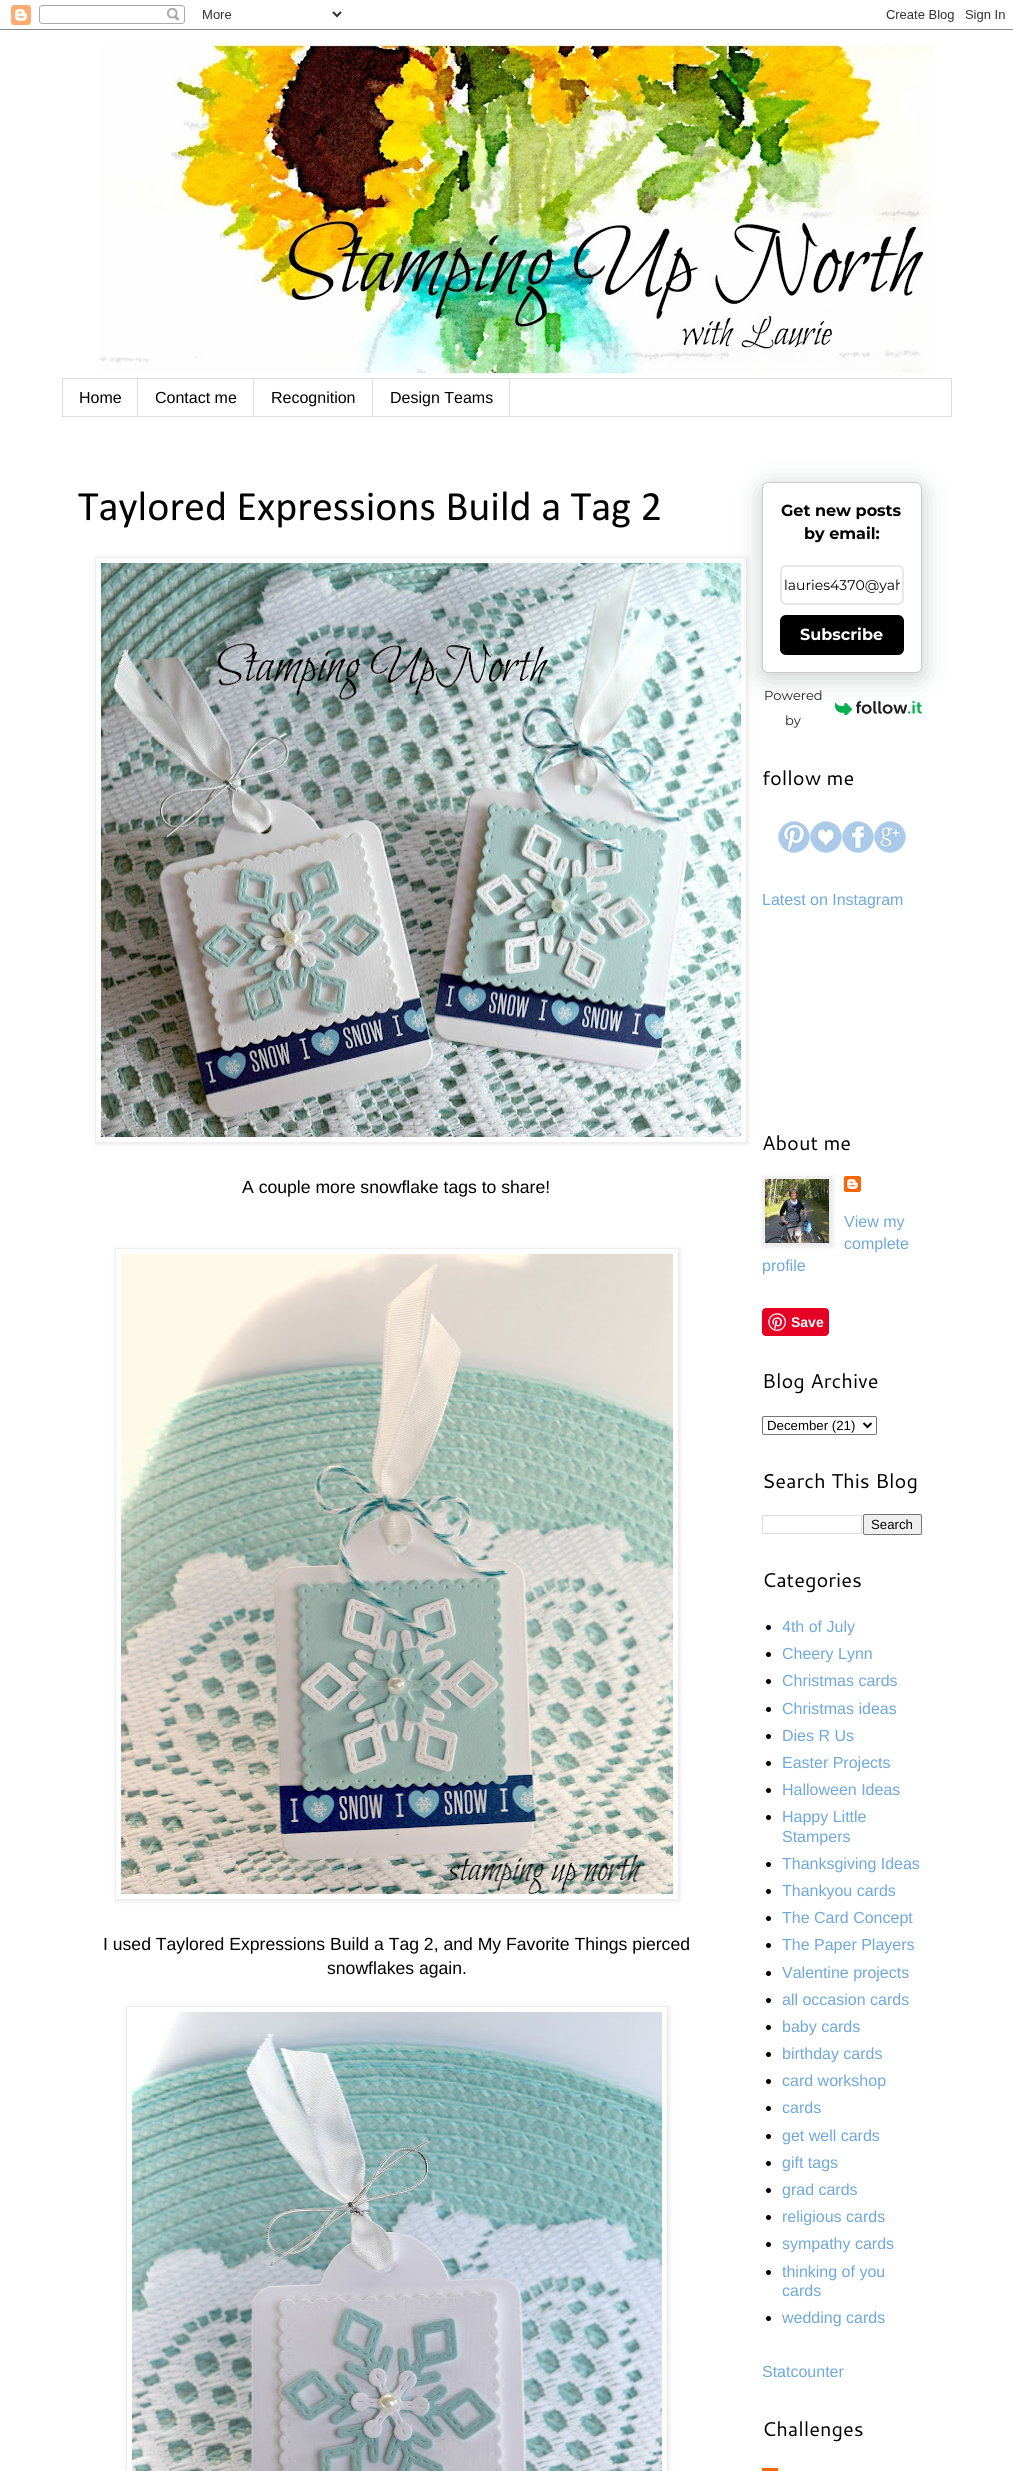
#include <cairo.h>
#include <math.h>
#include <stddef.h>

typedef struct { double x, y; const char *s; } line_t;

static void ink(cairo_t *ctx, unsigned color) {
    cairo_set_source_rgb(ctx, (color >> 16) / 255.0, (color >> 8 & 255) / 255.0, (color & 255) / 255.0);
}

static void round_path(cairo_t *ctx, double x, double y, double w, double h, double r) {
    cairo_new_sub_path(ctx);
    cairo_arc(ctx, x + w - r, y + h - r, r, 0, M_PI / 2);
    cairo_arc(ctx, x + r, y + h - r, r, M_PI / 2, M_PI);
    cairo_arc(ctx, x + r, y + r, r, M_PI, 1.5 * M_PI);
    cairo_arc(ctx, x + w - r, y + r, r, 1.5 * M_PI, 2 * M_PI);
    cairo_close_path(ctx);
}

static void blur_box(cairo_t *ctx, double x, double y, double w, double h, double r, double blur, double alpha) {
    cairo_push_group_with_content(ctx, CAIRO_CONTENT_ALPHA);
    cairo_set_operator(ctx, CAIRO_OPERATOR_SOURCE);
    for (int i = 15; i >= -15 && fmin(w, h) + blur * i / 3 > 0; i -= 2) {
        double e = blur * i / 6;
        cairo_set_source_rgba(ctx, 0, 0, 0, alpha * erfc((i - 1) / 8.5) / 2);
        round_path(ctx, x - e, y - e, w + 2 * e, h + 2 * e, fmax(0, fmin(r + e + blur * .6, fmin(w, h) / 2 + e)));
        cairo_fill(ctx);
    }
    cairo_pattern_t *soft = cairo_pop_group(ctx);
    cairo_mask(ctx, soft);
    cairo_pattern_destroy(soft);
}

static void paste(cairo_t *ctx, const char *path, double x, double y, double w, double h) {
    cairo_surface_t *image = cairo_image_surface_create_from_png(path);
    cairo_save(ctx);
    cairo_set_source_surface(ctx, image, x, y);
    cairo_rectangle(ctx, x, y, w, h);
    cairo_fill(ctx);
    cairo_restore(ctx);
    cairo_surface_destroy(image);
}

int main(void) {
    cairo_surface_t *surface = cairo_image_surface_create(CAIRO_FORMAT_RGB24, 1013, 2471);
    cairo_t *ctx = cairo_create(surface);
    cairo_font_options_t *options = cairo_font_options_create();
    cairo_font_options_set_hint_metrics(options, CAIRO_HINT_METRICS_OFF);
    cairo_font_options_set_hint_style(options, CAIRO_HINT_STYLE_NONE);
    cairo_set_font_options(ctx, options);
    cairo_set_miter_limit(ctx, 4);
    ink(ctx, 0xFFFFFF);
    cairo_paint(ctx);
    paste(ctx, "media/1.png", 0, 5, 1013, 25);
    paste(ctx, "media/2.png", 98, 40, 838, 336);
    cairo_rectangle(ctx, 62.5, 378.5, 889, 38);
    ink(ctx, 0xDDDDDD);
    cairo_set_line_width(ctx, 1);
    cairo_stroke(ctx);
    cairo_rectangle(ctx, 137, 379, 1, 37);
    cairo_fill(ctx);
    cairo_select_font_face(ctx, "Liberation Sans", CAIRO_FONT_SLANT_NORMAL, CAIRO_FONT_WEIGHT_NORMAL);
    cairo_set_font_size(ctx, 16);
    ink(ctx, 0x000000);
    cairo_move_to(ctx, 79, 403);
    cairo_show_text(ctx, "Home");
    ink(ctx, 0xDDDDDD);
    cairo_rectangle(ctx, 253, 379, 1, 37);
    cairo_fill(ctx);
    ink(ctx, 0x000000);
    cairo_move_to(ctx, 155, 403);
    cairo_show_text(ctx, "Contact me");
    ink(ctx, 0xDDDDDD);
    cairo_rectangle(ctx, 372, 379, 1, 37);
    cairo_fill(ctx);
    ink(ctx, 0x000000);
    cairo_move_to(ctx, 271, 403);
    cairo_show_text(ctx, "Recognition");
    ink(ctx, 0xDDDDDD);
    cairo_rectangle(ctx, 509, 379, 1, 37);
    cairo_fill(ctx);
    ink(ctx, 0x000000);
    cairo_move_to(ctx, 390, 403);
    cairo_show_text(ctx, "Design Teams");
    cairo_select_font_face(ctx, "Calibri", CAIRO_FONT_SLANT_NORMAL, CAIRO_FONT_WEIGHT_NORMAL);
    cairo_set_font_size(ctx, 42);
    cairo_move_to(ctx, 78, 520);
    cairo_show_text(ctx, "Taylored Expressions Build a Tag 2");
    cairo_save(ctx);
    cairo_set_fill_rule(ctx, CAIRO_FILL_RULE_EVEN_ODD);
    cairo_new_path(ctx);
    cairo_move_to(ctx, 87, 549);
    cairo_line_to(ctx, 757, 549);
    cairo_line_to(ctx, 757, 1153);
    cairo_line_to(ctx, 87, 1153);
    cairo_close_path(ctx);
    cairo_move_to(ctx, 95, 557);
    cairo_line_to(ctx, 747, 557);
    cairo_line_to(ctx, 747, 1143);
    cairo_line_to(ctx, 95, 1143);
    cairo_close_path(ctx);
    cairo_clip(ctx);
    ink(ctx, 0x000000);
    blur_box(ctx, 96, 558, 652, 586, 0, 2.5, 0.1);
    cairo_restore(ctx);
    cairo_rectangle(ctx, 95.5, 557.5, 651, 585);
    ink(ctx, 0xEEEEEE);
    cairo_stroke(ctx);
    paste(ctx, "media/3.png", 101, 563, 640, 574);
    cairo_select_font_face(ctx, "Liberation Sans", CAIRO_FONT_SLANT_NORMAL, CAIRO_FONT_WEIGHT_NORMAL);
    cairo_set_font_size(ctx, 17.6);
    ink(ctx, 0x000000);
    cairo_move_to(ctx, 242, 1193);
    cairo_show_text(ctx, "A couple more snowflake tags to share!");
    cairo_save(ctx);
    cairo_set_fill_rule(ctx, CAIRO_FILL_RULE_EVEN_ODD);
    cairo_new_path(ctx);
    cairo_move_to(ctx, 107, 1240);
    cairo_line_to(ctx, 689, 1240);
    cairo_line_to(ctx, 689, 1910);
    cairo_line_to(ctx, 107, 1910);
    cairo_close_path(ctx);
    cairo_move_to(ctx, 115, 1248);
    cairo_line_to(ctx, 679, 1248);
    cairo_line_to(ctx, 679, 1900);
    cairo_line_to(ctx, 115, 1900);
    cairo_close_path(ctx);
    cairo_clip(ctx);
    ink(ctx, 0x000000);
    blur_box(ctx, 116, 1249, 564, 652, 0, 2.5, 0.1);
    cairo_restore(ctx);
    cairo_rectangle(ctx, 115.5, 1248.5, 563, 651);
    ink(ctx, 0xEEEEEE);
    cairo_stroke(ctx);
    paste(ctx, "media/4.png", 121, 1254, 552, 640);
    ink(ctx, 0x000000);
    cairo_move_to(ctx, 103, 1950);
    cairo_show_text(ctx, "I used Taylored Expressions Build a Tag 2, and My Favorite Things pierced");
    cairo_move_to(ctx, 327, 1974);
    cairo_show_text(ctx, "snowflakes again.");
    cairo_save(ctx);
    cairo_set_fill_rule(ctx, CAIRO_FILL_RULE_EVEN_ODD);
    cairo_new_path(ctx);
    cairo_move_to(ctx, 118, 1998);
    cairo_line_to(ctx, 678, 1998);
    cairo_line_to(ctx, 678, 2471);
    cairo_line_to(ctx, 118, 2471);
    cairo_close_path(ctx);
    cairo_move_to(ctx, 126, 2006);
    cairo_line_to(ctx, 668, 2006);
    cairo_line_to(ctx, 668, 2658);
    cairo_line_to(ctx, 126, 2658);
    cairo_close_path(ctx);
    cairo_clip(ctx);
    ink(ctx, 0x000000);
    blur_box(ctx, 127, 2007, 542, 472, 0, 2.5, 0.1);
    cairo_restore(ctx);
    cairo_rectangle(ctx, 126.5, 2006.5, 541, 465);
    ink(ctx, 0xEEEEEE);
    cairo_stroke(ctx);
    paste(ctx, "media/5.png", 132, 2012, 530, 459);
    ink(ctx, 0x223C2F);
    blur_box(ctx, 762, 487, 160, 191, 6, 12.5, 0.25);
    ink(ctx, 0xFFFFFF);
    round_path(ctx, 762.5, 482.5, 159, 190, 5.5);
    cairo_fill_preserve(ctx);
    ink(ctx, 0xCCCCCC);
    cairo_stroke(ctx);
    cairo_select_font_face(ctx, "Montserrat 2 Thin", CAIRO_FONT_SLANT_NORMAL, CAIRO_FONT_WEIGHT_NORMAL);
    cairo_set_font_size(ctx, 16);
    ink(ctx, 0x000000);
    cairo_move_to(ctx, 781, 516);
    cairo_show_text(ctx, "Get new posts");
    cairo_move_to(ctx, 804, 539);
    cairo_show_text(ctx, "by email:");
    round_path(ctx, 781, 566, 122, 38, 5);
    ink(ctx, 0xE9E8E8);
    cairo_set_line_width(ctx, 2);
    cairo_stroke(ctx);
    cairo_save(ctx);
    cairo_rectangle(ctx, 784, 576, 116, 18);
    cairo_clip(ctx);
    cairo_select_font_face(ctx, "Montserrat Thin", CAIRO_FONT_SLANT_NORMAL, CAIRO_FONT_WEIGHT_NORMAL);
    cairo_set_font_size(ctx, 14);
    ink(ctx, 0x000000);
    cairo_move_to(ctx, 784, 590);
    cairo_show_text(ctx, "lauries4370@yah");
    cairo_restore(ctx);
    ink(ctx, 0x000000);
    round_path(ctx, 780, 615, 124, 40, 6);
    cairo_fill(ctx);
    ink(ctx, 0xFFFFFF);
    cairo_move_to(ctx, 800, 640);
    cairo_show_text(ctx, "Subscribe");
    cairo_select_font_face(ctx, "Montserrat Thin", CAIRO_FONT_SLANT_NORMAL, CAIRO_FONT_WEIGHT_NORMAL);
    cairo_set_font_size(ctx, 13);
    ink(ctx, 0x231F20);
    cairo_move_to(ctx, 764, 700);
    cairo_show_text(ctx, "Powered");
    paste(ctx, "media/6.png", 835, 701, 87, 14);
    cairo_move_to(ctx, 785, 725);
    cairo_show_text(ctx, "by");
    cairo_select_font_face(ctx, "Cantarell", CAIRO_FONT_SLANT_NORMAL, CAIRO_FONT_WEIGHT_NORMAL);
    cairo_set_font_size(ctx, 20);
    ink(ctx, 0x000000);
    cairo_move_to(ctx, 762, 785);
    cairo_show_text(ctx, "follow me");
    paste(ctx, "media/7.png", 778, 821, 32, 32);
    paste(ctx, "media/8.png", 810, 821, 32, 32);
    paste(ctx, "media/9.png", 842, 821, 32, 32);
    paste(ctx, "media/10.png", 874, 821, 32, 32);
    cairo_select_font_face(ctx, "Liberation Sans", CAIRO_FONT_SLANT_NORMAL, CAIRO_FONT_WEIGHT_NORMAL);
    cairo_set_font_size(ctx, 16);
    ink(ctx, 0x6FA8DC);
    cairo_move_to(ctx, 762, 905);
    cairo_show_text(ctx, "Latest on Instagram");
    cairo_select_font_face(ctx, "Cantarell", CAIRO_FONT_SLANT_NORMAL, CAIRO_FONT_WEIGHT_NORMAL);
    cairo_set_font_size(ctx, 20);
    ink(ctx, 0x000000);
    cairo_move_to(ctx, 762, 1150);
    cairo_show_text(ctx, "About me");
    ink(ctx, 0x000000);
    blur_box(ctx, 763, 1177, 70, 70, 0, 2.5, 0.1);
    cairo_rectangle(ctx, 762.5, 1176.5, 69, 69);
    ink(ctx, 0xEEEEEE);
    cairo_set_line_width(ctx, 1);
    cairo_stroke(ctx);
    paste(ctx, "media/11.png", 765, 1179, 64, 64);
    paste(ctx, "media/12.png", 844, 1176, 17, 16);
    cairo_select_font_face(ctx, "Liberation Sans", CAIRO_FONT_SLANT_NORMAL, CAIRO_FONT_WEIGHT_NORMAL);
    cairo_set_font_size(ctx, 16);
    ink(ctx, 0x6FA8DC);
    {
        static const line_t items[] = {
            {844, 1227, "View my"},
            {844, 1249, "complete"},
            {762, 1271, "profile"},
        };
        for (size_t i = 0; i < sizeof items / sizeof *items; i++) {
            cairo_move_to(ctx, items[i].x, items[i].y);
            cairo_show_text(ctx, items[i].s);
        }
    }
    ink(ctx, 0xE60023);
    round_path(ctx, 762, 1308, 67, 28, 4);
    cairo_fill(ctx);
    paste(ctx, "media/13.png", 768, 1313, 18, 18);
    cairo_select_font_face(ctx, "Liberation Sans", CAIRO_FONT_SLANT_NORMAL, CAIRO_FONT_WEIGHT_BOLD);
    cairo_set_font_size(ctx, 14);
    ink(ctx, 0xFFFFFF);
    cairo_move_to(ctx, 791, 1327);
    cairo_show_text(ctx, "Save");
    cairo_select_font_face(ctx, "Cantarell", CAIRO_FONT_SLANT_NORMAL, CAIRO_FONT_WEIGHT_NORMAL);
    cairo_set_font_size(ctx, 20);
    ink(ctx, 0x000000);
    cairo_move_to(ctx, 762, 1388);
    cairo_show_text(ctx, "Blog Archive");
    round_path(ctx, 762.5, 1416.5, 114, 18, 1.5);
    ink(ctx, 0x767676);
    cairo_stroke(ctx);
    cairo_new_path(ctx);
    cairo_move_to(ctx, 863.5, 1423);
    cairo_line_to(ctx, 867.5, 1427);
    cairo_line_to(ctx, 871.5, 1423);
    ink(ctx, 0x000000);
    cairo_set_line_width(ctx, 2);
    cairo_stroke(ctx);
    cairo_select_font_face(ctx, "Liberation Sans", CAIRO_FONT_SLANT_NORMAL, CAIRO_FONT_WEIGHT_NORMAL);
    cairo_set_font_size(ctx, 13.25);
    cairo_move_to(ctx, 767, 1430);
    cairo_show_text(ctx, "December (21)");
    cairo_select_font_face(ctx, "Cantarell", CAIRO_FONT_SLANT_NORMAL, CAIRO_FONT_WEIGHT_NORMAL);
    cairo_set_font_size(ctx, 20);
    cairo_move_to(ctx, 762, 1488);
    cairo_show_text(ctx, "Search This Blog");
    cairo_rectangle(ctx, 762.5, 1515.5, 99, 18);
    ink(ctx, 0xDDDDDD);
    cairo_set_line_width(ctx, 1);
    cairo_stroke(ctx);
    ink(ctx, 0xEFEFEF);
    round_path(ctx, 863.5, 1514.5, 58, 20, 1.5);
    cairo_fill_preserve(ctx);
    ink(ctx, 0x767676);
    cairo_stroke(ctx);
    cairo_select_font_face(ctx, "Liberation Sans", CAIRO_FONT_SLANT_NORMAL, CAIRO_FONT_WEIGHT_NORMAL);
    cairo_set_font_size(ctx, 13.25);
    ink(ctx, 0x000000);
    cairo_move_to(ctx, 871, 1529);
    cairo_show_text(ctx, "Search");
    cairo_select_font_face(ctx, "Cantarell", CAIRO_FONT_SLANT_NORMAL, CAIRO_FONT_WEIGHT_NORMAL);
    cairo_set_font_size(ctx, 20);
    cairo_move_to(ctx, 762, 1587);
    cairo_show_text(ctx, "Categories");
    cairo_new_path(ctx);
    cairo_arc(ctx, 768.5, 1627.5, 2.5, 0, 2 * M_PI);
    cairo_fill(ctx);
    cairo_select_font_face(ctx, "Liberation Sans", CAIRO_FONT_SLANT_NORMAL, CAIRO_FONT_WEIGHT_NORMAL);
    cairo_set_font_size(ctx, 16);
    ink(ctx, 0x6FA8DC);
    cairo_move_to(ctx, 782, 1632);
    cairo_show_text(ctx, "4th of July");
    ink(ctx, 0x000000);
    cairo_new_path(ctx);
    cairo_arc(ctx, 768.5, 1654.5, 2.5, 0, 2 * M_PI);
    cairo_fill(ctx);
    ink(ctx, 0x6FA8DC);
    cairo_move_to(ctx, 782, 1659);
    cairo_show_text(ctx, "Cheery Lynn");
    ink(ctx, 0x000000);
    cairo_new_path(ctx);
    cairo_arc(ctx, 768.5, 1681.5, 2.5, 0, 2 * M_PI);
    cairo_fill(ctx);
    ink(ctx, 0x6FA8DC);
    cairo_move_to(ctx, 782, 1686);
    cairo_show_text(ctx, "Christmas cards");
    ink(ctx, 0x000000);
    cairo_new_path(ctx);
    cairo_arc(ctx, 768.5, 1709.5, 2.5, 0, 2 * M_PI);
    cairo_fill(ctx);
    ink(ctx, 0x6FA8DC);
    cairo_move_to(ctx, 782, 1714);
    cairo_show_text(ctx, "Christmas ideas");
    ink(ctx, 0x000000);
    cairo_new_path(ctx);
    cairo_arc(ctx, 768.5, 1736.5, 2.5, 0, 2 * M_PI);
    cairo_fill(ctx);
    ink(ctx, 0x6FA8DC);
    cairo_move_to(ctx, 782, 1741);
    cairo_show_text(ctx, "Dies R Us");
    ink(ctx, 0x000000);
    cairo_new_path(ctx);
    cairo_arc(ctx, 768.5, 1763.5, 2.5, 0, 2 * M_PI);
    cairo_fill(ctx);
    ink(ctx, 0x6FA8DC);
    cairo_move_to(ctx, 782, 1768);
    cairo_show_text(ctx, "Easter Projects");
    ink(ctx, 0x000000);
    cairo_new_path(ctx);
    cairo_arc(ctx, 768.5, 1790.5, 2.5, 0, 2 * M_PI);
    cairo_fill(ctx);
    ink(ctx, 0x6FA8DC);
    cairo_move_to(ctx, 782, 1795);
    cairo_show_text(ctx, "Halloween Ideas");
    ink(ctx, 0x000000);
    cairo_new_path(ctx);
    cairo_arc(ctx, 768.5, 1817.5, 2.5, 0, 2 * M_PI);
    cairo_fill(ctx);
    ink(ctx, 0x6FA8DC);
    cairo_move_to(ctx, 782, 1822);
    cairo_show_text(ctx, "Happy Little");
    cairo_move_to(ctx, 782, 1842);
    cairo_show_text(ctx, "Stampers");
    ink(ctx, 0x000000);
    cairo_new_path(ctx);
    cairo_arc(ctx, 768.5, 1864.5, 2.5, 0, 2 * M_PI);
    cairo_fill(ctx);
    ink(ctx, 0x6FA8DC);
    cairo_move_to(ctx, 782, 1869);
    cairo_show_text(ctx, "Thanksgiving Ideas");
    ink(ctx, 0x000000);
    cairo_new_path(ctx);
    cairo_arc(ctx, 768.5, 1891.5, 2.5, 0, 2 * M_PI);
    cairo_fill(ctx);
    ink(ctx, 0x6FA8DC);
    cairo_move_to(ctx, 782, 1896);
    cairo_show_text(ctx, "Thankyou cards");
    ink(ctx, 0x000000);
    cairo_new_path(ctx);
    cairo_arc(ctx, 768.5, 1918.5, 2.5, 0, 2 * M_PI);
    cairo_fill(ctx);
    ink(ctx, 0x6FA8DC);
    cairo_move_to(ctx, 782, 1923);
    cairo_show_text(ctx, "The Card Concept");
    ink(ctx, 0x000000);
    cairo_new_path(ctx);
    cairo_arc(ctx, 768.5, 1945.5, 2.5, 0, 2 * M_PI);
    cairo_fill(ctx);
    ink(ctx, 0x6FA8DC);
    cairo_move_to(ctx, 782, 1950);
    cairo_show_text(ctx, "The Paper Players");
    ink(ctx, 0x000000);
    cairo_new_path(ctx);
    cairo_arc(ctx, 768.5, 1973.5, 2.5, 0, 2 * M_PI);
    cairo_fill(ctx);
    ink(ctx, 0x6FA8DC);
    cairo_move_to(ctx, 782, 1978);
    cairo_show_text(ctx, "Valentine projects");
    ink(ctx, 0x000000);
    cairo_new_path(ctx);
    cairo_arc(ctx, 768.5, 2000.5, 2.5, 0, 2 * M_PI);
    cairo_fill(ctx);
    ink(ctx, 0x6FA8DC);
    cairo_move_to(ctx, 782, 2005);
    cairo_show_text(ctx, "all occasion cards");
    ink(ctx, 0x000000);
    cairo_new_path(ctx);
    cairo_arc(ctx, 768.5, 2027.5, 2.5, 0, 2 * M_PI);
    cairo_fill(ctx);
    ink(ctx, 0x6FA8DC);
    cairo_move_to(ctx, 782, 2032);
    cairo_show_text(ctx, "baby cards");
    ink(ctx, 0x000000);
    cairo_new_path(ctx);
    cairo_arc(ctx, 768.5, 2054.5, 2.5, 0, 2 * M_PI);
    cairo_fill(ctx);
    ink(ctx, 0x6FA8DC);
    cairo_move_to(ctx, 782, 2059);
    cairo_show_text(ctx, "birthday cards");
    ink(ctx, 0x000000);
    cairo_new_path(ctx);
    cairo_arc(ctx, 768.5, 2081.5, 2.5, 0, 2 * M_PI);
    cairo_fill(ctx);
    ink(ctx, 0x6FA8DC);
    cairo_move_to(ctx, 782, 2086);
    cairo_show_text(ctx, "card workshop");
    ink(ctx, 0x000000);
    cairo_new_path(ctx);
    cairo_arc(ctx, 768.5, 2108.5, 2.5, 0, 2 * M_PI);
    cairo_fill(ctx);
    ink(ctx, 0x6FA8DC);
    cairo_move_to(ctx, 782, 2113);
    cairo_show_text(ctx, "cards");
    ink(ctx, 0x000000);
    cairo_new_path(ctx);
    cairo_arc(ctx, 768.5, 2136.5, 2.5, 0, 2 * M_PI);
    cairo_fill(ctx);
    ink(ctx, 0x6FA8DC);
    cairo_move_to(ctx, 782, 2141);
    cairo_show_text(ctx, "get well cards");
    ink(ctx, 0x000000);
    cairo_new_path(ctx);
    cairo_arc(ctx, 768.5, 2163.5, 2.5, 0, 2 * M_PI);
    cairo_fill(ctx);
    ink(ctx, 0x6FA8DC);
    cairo_move_to(ctx, 782, 2168);
    cairo_show_text(ctx, "gift tags");
    ink(ctx, 0x000000);
    cairo_new_path(ctx);
    cairo_arc(ctx, 768.5, 2190.5, 2.5, 0, 2 * M_PI);
    cairo_fill(ctx);
    ink(ctx, 0x6FA8DC);
    cairo_move_to(ctx, 782, 2195);
    cairo_show_text(ctx, "grad cards");
    ink(ctx, 0x000000);
    cairo_new_path(ctx);
    cairo_arc(ctx, 768.5, 2217.5, 2.5, 0, 2 * M_PI);
    cairo_fill(ctx);
    ink(ctx, 0x6FA8DC);
    cairo_move_to(ctx, 782, 2222);
    cairo_show_text(ctx, "religious cards");
    ink(ctx, 0x000000);
    cairo_new_path(ctx);
    cairo_arc(ctx, 768.5, 2244.5, 2.5, 0, 2 * M_PI);
    cairo_fill(ctx);
    ink(ctx, 0x6FA8DC);
    cairo_move_to(ctx, 782, 2249);
    cairo_show_text(ctx, "sympathy cards");
    ink(ctx, 0x000000);
    cairo_new_path(ctx);
    cairo_arc(ctx, 768.5, 2272.5, 2.5, 0, 2 * M_PI);
    cairo_fill(ctx);
    ink(ctx, 0x6FA8DC);
    cairo_move_to(ctx, 782, 2277);
    cairo_show_text(ctx, "thinking of you");
    cairo_move_to(ctx, 782, 2296);
    cairo_show_text(ctx, "cards");
    ink(ctx, 0x000000);
    cairo_new_path(ctx);
    cairo_arc(ctx, 768.5, 2318.5, 2.5, 0, 2 * M_PI);
    cairo_fill(ctx);
    ink(ctx, 0x6FA8DC);
    cairo_move_to(ctx, 782, 2323);
    cairo_show_text(ctx, "wedding cards");
    cairo_move_to(ctx, 762, 2377);
    cairo_show_text(ctx, "Statcounter");
    cairo_select_font_face(ctx, "Cantarell", CAIRO_FONT_SLANT_NORMAL, CAIRO_FONT_WEIGHT_NORMAL);
    cairo_set_font_size(ctx, 20);
    ink(ctx, 0x000000);
    cairo_move_to(ctx, 762, 2436);
    cairo_show_text(ctx, "Challenges");
    ink(ctx, 0xFE6602);
    cairo_rectangle(ctx, 762, 2468, 16, 3);
    cairo_fill(ctx);
    cairo_surface_write_to_png(surface, "image.png");
    cairo_font_options_destroy(options);
    cairo_destroy(ctx);
    cairo_surface_destroy(surface);
    return 0;
}
